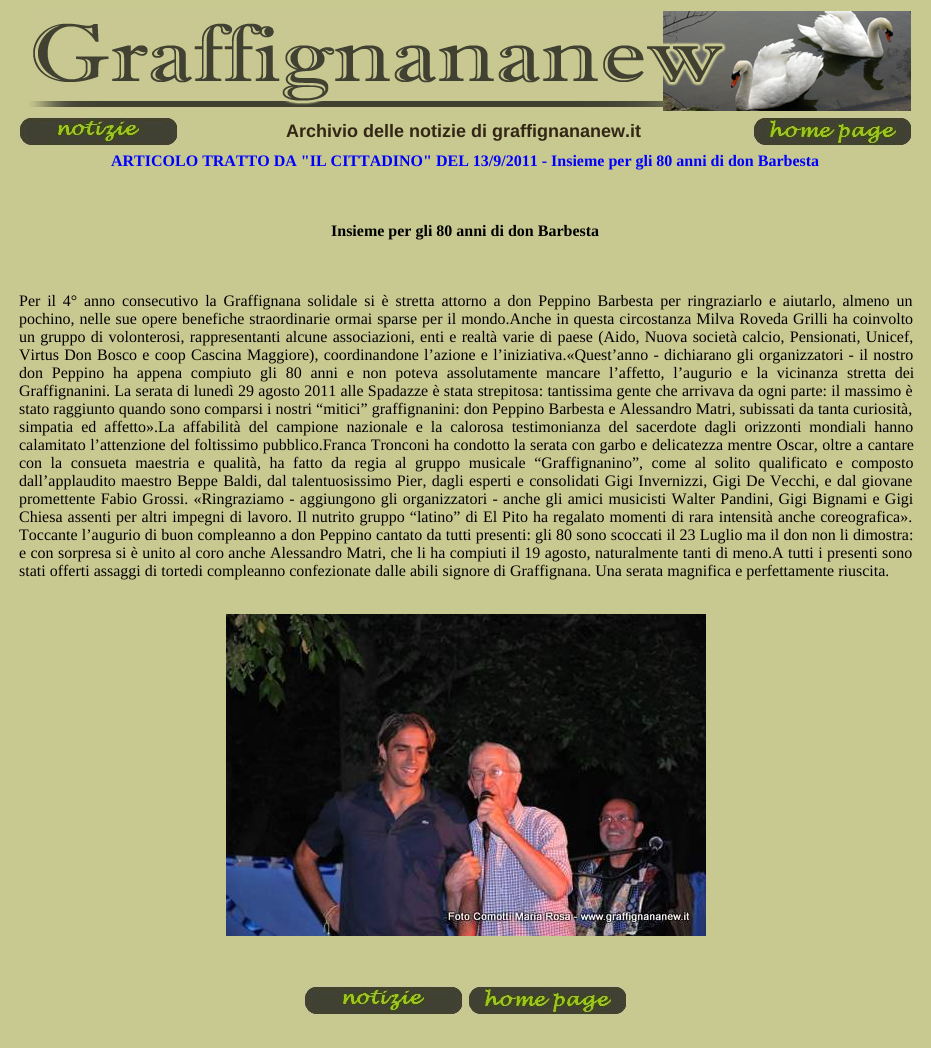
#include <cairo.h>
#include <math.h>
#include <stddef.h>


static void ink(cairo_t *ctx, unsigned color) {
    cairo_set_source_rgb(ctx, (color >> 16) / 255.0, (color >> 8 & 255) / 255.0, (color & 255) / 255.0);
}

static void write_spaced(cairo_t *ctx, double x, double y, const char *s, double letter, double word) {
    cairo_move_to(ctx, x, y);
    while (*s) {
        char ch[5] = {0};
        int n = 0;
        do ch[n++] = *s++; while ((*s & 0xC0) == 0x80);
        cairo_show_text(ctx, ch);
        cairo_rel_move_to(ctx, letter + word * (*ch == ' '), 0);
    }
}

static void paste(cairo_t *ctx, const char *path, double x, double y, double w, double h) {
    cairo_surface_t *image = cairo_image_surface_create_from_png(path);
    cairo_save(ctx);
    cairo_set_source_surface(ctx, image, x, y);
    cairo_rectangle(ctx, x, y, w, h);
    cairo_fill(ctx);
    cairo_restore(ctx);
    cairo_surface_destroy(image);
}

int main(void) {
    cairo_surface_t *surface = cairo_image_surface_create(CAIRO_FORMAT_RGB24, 931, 1048);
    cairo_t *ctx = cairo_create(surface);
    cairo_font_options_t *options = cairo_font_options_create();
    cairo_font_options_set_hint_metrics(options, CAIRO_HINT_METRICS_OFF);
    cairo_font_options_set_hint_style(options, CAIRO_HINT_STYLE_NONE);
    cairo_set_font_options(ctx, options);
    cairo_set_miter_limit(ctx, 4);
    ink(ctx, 0xC8C891);
    cairo_paint(ctx);
    paste(ctx, "media/1.png", 29, 11, 882, 100);
    paste(ctx, "media/2.png", 19, 117, 160, 29);
    cairo_select_font_face(ctx, "Liberation Sans", CAIRO_FONT_SLANT_NORMAL, CAIRO_FONT_WEIGHT_BOLD);
    cairo_set_font_size(ctx, 18);
    ink(ctx, 0x332615);
    cairo_move_to(ctx, 286, 137);
    cairo_show_text(ctx, "Archivio delle notizie di graffignananew.it");
    paste(ctx, "media/3.png", 753, 117, 160, 29);
    cairo_select_font_face(ctx, "Liberation Serif", CAIRO_FONT_SLANT_NORMAL, CAIRO_FONT_WEIGHT_BOLD);
    cairo_set_font_size(ctx, 16);
    ink(ctx, 0x0000FF);
    cairo_move_to(ctx, 111, 166);
    cairo_show_text(ctx, "ARTICOLO TRATTO DA \"IL CITTADINO\" DEL 13/9/2011 - Insieme per gli 80 anni di don Barbesta");
    ink(ctx, 0x000000);
    cairo_move_to(ctx, 331, 236);
    cairo_show_text(ctx, "Insieme per gli 80 anni di don Barbesta");
    cairo_select_font_face(ctx, "Liberation Serif", CAIRO_FONT_SLANT_NORMAL, CAIRO_FONT_WEIGHT_NORMAL);
    write_spaced(ctx, 19, 306, "Per il 4° anno consecutivo la Graffignana solidale si è stretta attorno a don Peppino Barbesta per ringraziarlo e aiutarlo, almeno un", 0, 2.8);
    write_spaced(ctx, 19, 324, "pochino, nelle sue opere benefiche straordinarie ormai sparse per il mondo.Anche in questa circostanza Milva Roveda Grilli ha coinvolto", 0, 0.9);
    write_spaced(ctx, 19, 342, "un gruppo di volonterosi, rappresentanti alcune associazioni, enti e realtà varie di paese (Aido, Nuova società calcio, Pensionati, Unicef,", 0, 1.25);
    write_spaced(ctx, 19, 360, "Virtus Don Bosco e coop Cascina Maggiore), coordinandone l’azione e l’iniziativa.«Quest’anno - dichiarano gli organizzatori - il nostro", 0, 1.25);
    write_spaced(ctx, 19, 378, "don Peppino ha appena compiuto gli 80 anni e non poteva assolutamente mancare l’affetto, l’augurio e la vicinanza stretta dei", 0, 4.75);
    write_spaced(ctx, 19, 396, "Graffignanini. La serata di lunedì 29 agosto 2011 alle Spadazze è stata strepitosa: tantissima gente che arrivava da ogni parte: il massimo è", 0, 0.25);
    write_spaced(ctx, 19, 414, "stato raggiunto quando sono comparsi i nostri “mitici” graffignanini: don Peppino Barbesta e Alessandro Matri, subissati da tanta curiosità,", 0, 0.1);
    write_spaced(ctx, 19, 432, "simpatia ed affetto».La affabilità del campione nazionale e la calorosa testimonianza del sacerdote dagli orizzonti mondiali hanno", 0, 4);
    write_spaced(ctx, 19, 450, "calamitato l’attenzione del foltissimo pubblico.Franca Tronconi ha condotto la serata con garbo e delicatezza mentre Oscar, oltre a cantare", 0, 0.5);
    write_spaced(ctx, 19, 468, "con la consueta maestria e qualità, ha fatto da regia al gruppo musicale “Graffignanino”, come al solito qualificato e composto", 0, 4.5);
    write_spaced(ctx, 19, 486, "dall’applaudito maestro Beppe Baldi, dal talentuosissimo Pier, dagli esperti e consolidati Gigi Invernizzi, Gigi De Vecchi, e dal giovane", 0, 1.25);
    write_spaced(ctx, 19, 504, "promettente Fabio Grossi. «Ringraziamo - aggiungono gli organizzatori - anche gli amici musicisti Walter Pandini, Gigi Bignami e Gigi", 0, 1.25);
    write_spaced(ctx, 19, 522, "Chiesa assenti per altri impegni di lavoro. Il nutrito gruppo “latino” di El Pito ha regalato momenti di rara intensità anche coreografica».", 0, 1);
    write_spaced(ctx, 19, 540, "Toccante l’augurio di buon compleanno a don Peppino cantato da tutti presenti: gli 80 sono scoccati il 23 Luglio ma il don non li dimostra:", 0, 0.2);
    write_spaced(ctx, 19, 558, "e con sorpresa si è unito al coro anche Alessandro Matri, che li ha compiuti il 19 agosto, naturalmente tanti di meno.A tutti i presenti sono", 0, 0.4);
    cairo_move_to(ctx, 19, 576);
    cairo_show_text(ctx, "stati offerti assaggi di tortedi compleanno confezionate dalle abili signore di Graffignana. Una serata magnifica e perfettamente riuscita.");
    paste(ctx, "media/4.png", 226, 614, 480, 322);
    paste(ctx, "media/2.png", 304, 986, 160, 29);
    paste(ctx, "media/3.png", 468, 986, 160, 29);
    cairo_surface_write_to_png(surface, "image.png");
    cairo_font_options_destroy(options);
    cairo_destroy(ctx);
    cairo_surface_destroy(surface);
    return 0;
}
